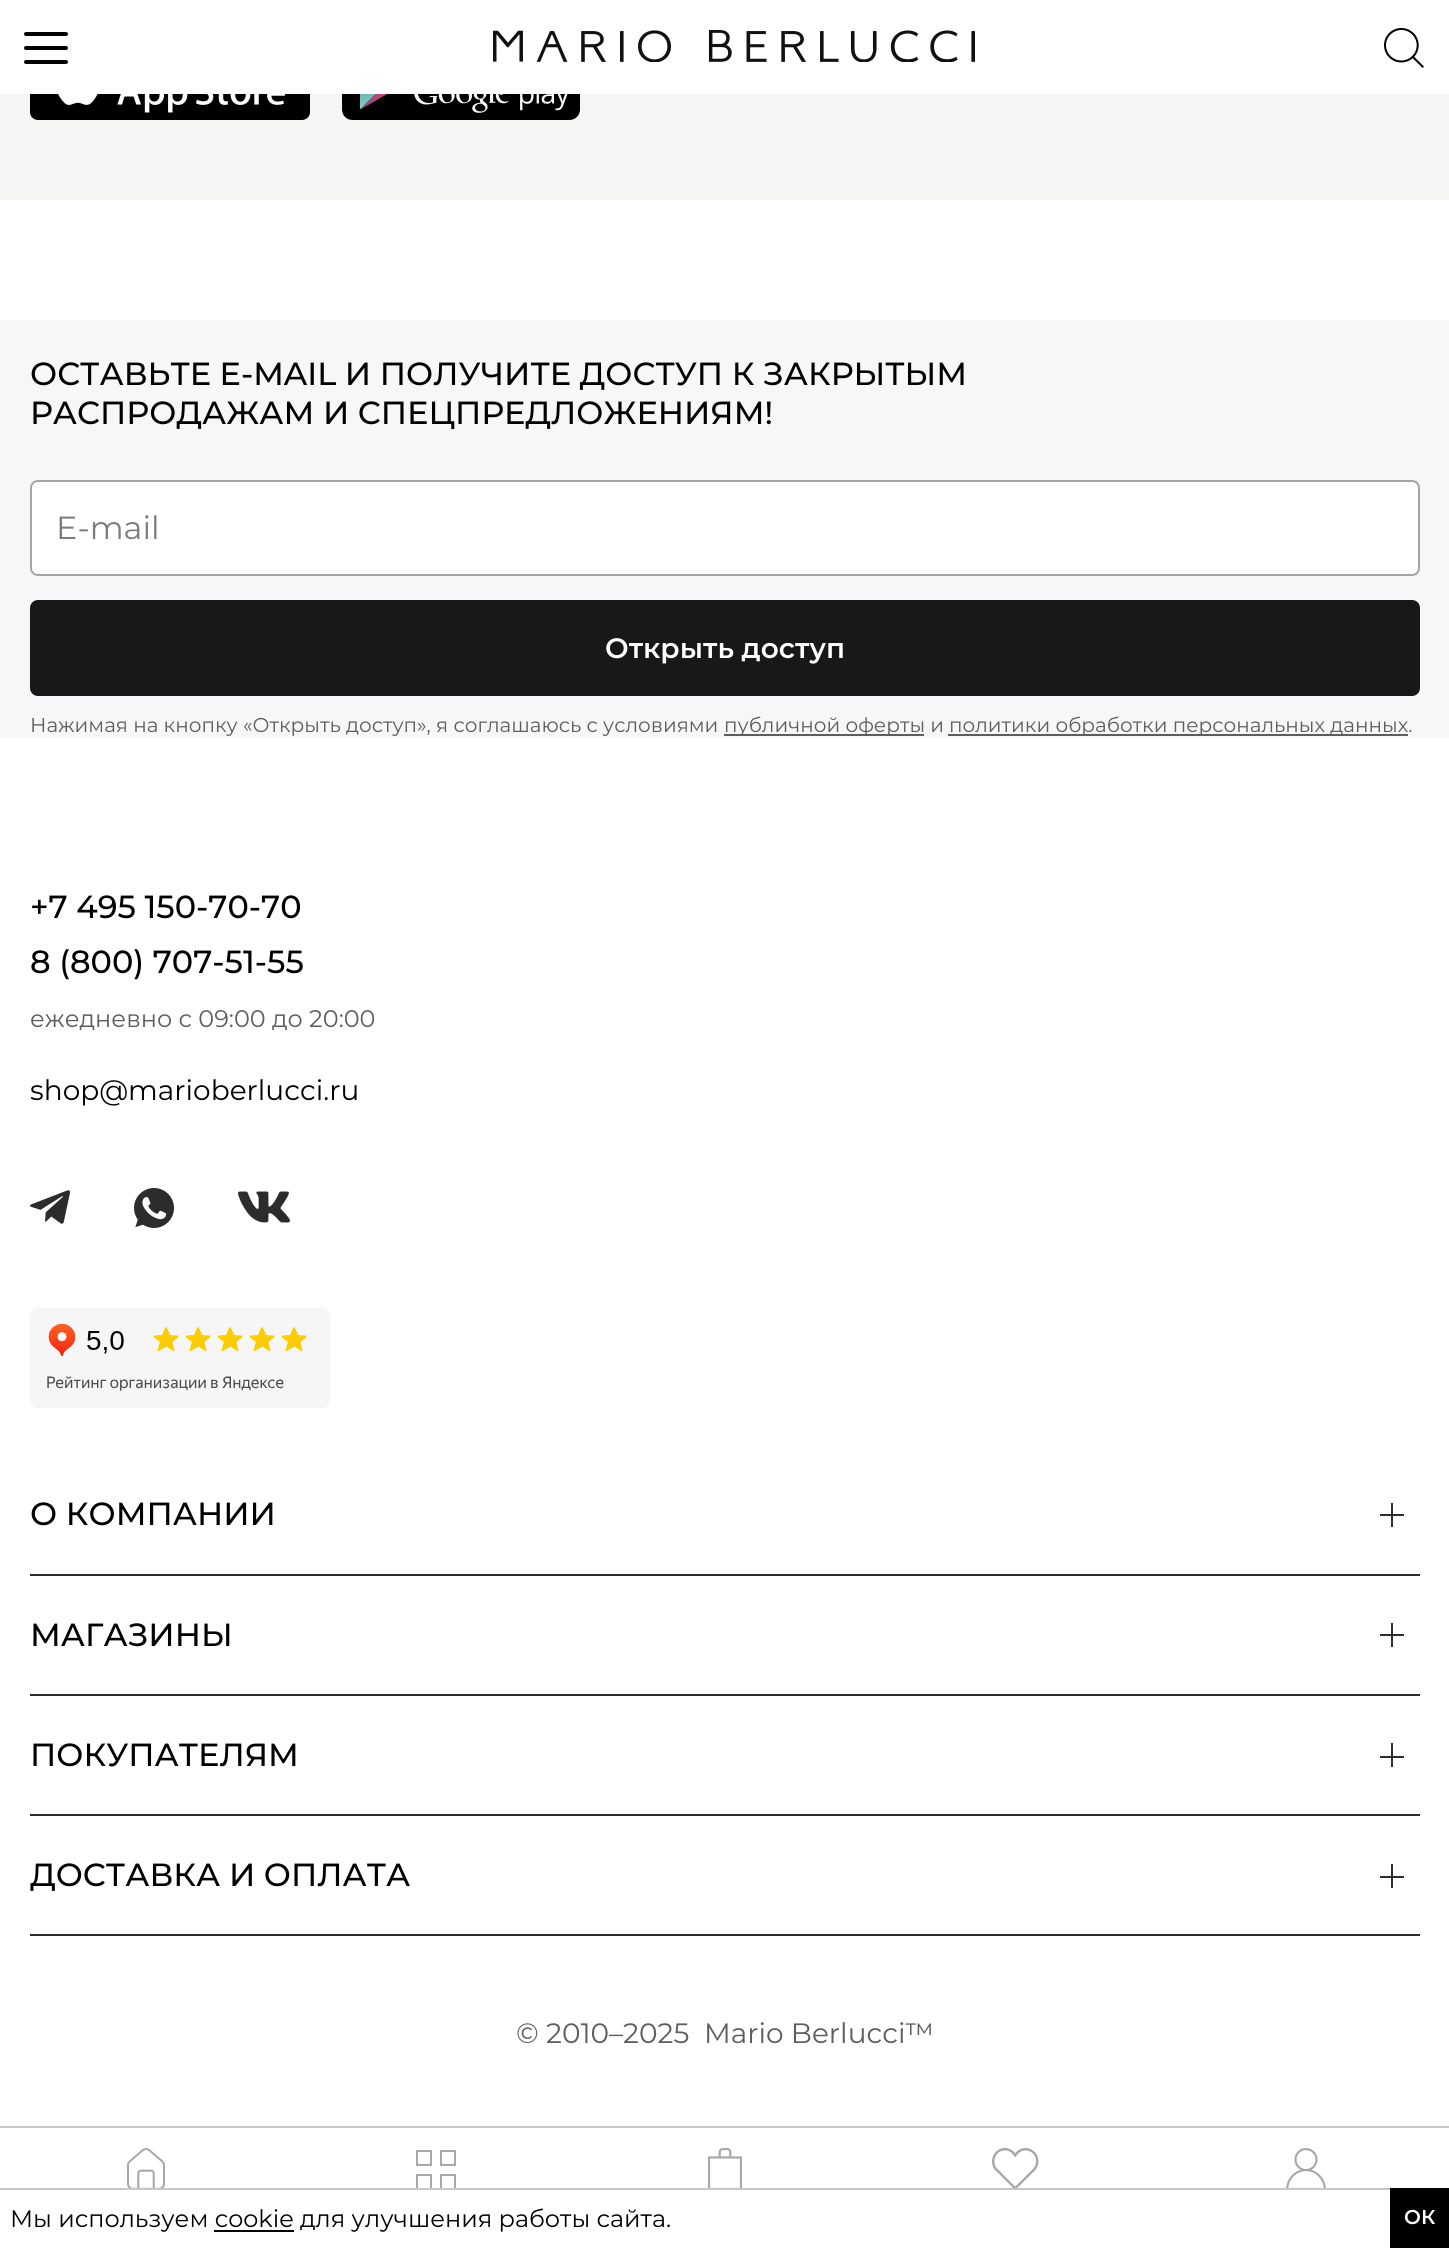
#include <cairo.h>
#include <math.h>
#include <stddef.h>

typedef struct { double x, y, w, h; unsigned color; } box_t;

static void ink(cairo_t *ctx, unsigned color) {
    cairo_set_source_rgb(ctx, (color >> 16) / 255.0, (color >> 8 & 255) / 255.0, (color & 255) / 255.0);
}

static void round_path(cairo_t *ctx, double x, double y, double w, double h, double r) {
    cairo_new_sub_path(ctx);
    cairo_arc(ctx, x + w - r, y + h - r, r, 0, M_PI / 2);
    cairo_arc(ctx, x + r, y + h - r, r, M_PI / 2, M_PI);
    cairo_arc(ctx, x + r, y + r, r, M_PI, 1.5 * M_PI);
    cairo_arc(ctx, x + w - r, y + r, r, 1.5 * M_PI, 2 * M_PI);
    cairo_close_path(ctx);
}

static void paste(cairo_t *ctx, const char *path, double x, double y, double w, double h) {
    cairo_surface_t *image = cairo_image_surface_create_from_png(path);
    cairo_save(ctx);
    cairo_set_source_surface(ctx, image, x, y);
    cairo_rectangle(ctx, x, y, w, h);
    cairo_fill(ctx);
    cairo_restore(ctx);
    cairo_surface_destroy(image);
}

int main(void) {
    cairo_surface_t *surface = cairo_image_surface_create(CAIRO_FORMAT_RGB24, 1449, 2248);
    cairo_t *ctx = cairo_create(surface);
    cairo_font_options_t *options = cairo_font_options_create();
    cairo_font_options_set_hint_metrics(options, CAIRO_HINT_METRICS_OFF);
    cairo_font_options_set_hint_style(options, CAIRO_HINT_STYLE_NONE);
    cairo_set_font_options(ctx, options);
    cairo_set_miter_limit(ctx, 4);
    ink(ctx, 0xFFFFFF);
    cairo_paint(ctx);
    ink(ctx, 0x000000);
    round_path(ctx, 24, 32, 44, 4, 2);
    cairo_fill(ctx);
    round_path(ctx, 24, 46, 44, 4, 2);
    cairo_fill(ctx);
    round_path(ctx, 24, 60, 44, 4, 2);
    cairo_fill(ctx);
    paste(ctx, "media/1.png", 493, 30, 482, 32);
    paste(ctx, "media/2.png", 1384, 28, 40, 40);
    ink(ctx, 0xF5F5F3);
    cairo_rectangle(ctx, 0, 94, 1449, 106);
    cairo_fill(ctx);
    paste(ctx, "media/3.png", 30, 94, 280, 26);
    paste(ctx, "media/4.png", 342, 94, 238, 26);
    ink(ctx, 0xF7F7F9);
    cairo_rectangle(ctx, 0, 320, 1449, 418);
    cairo_fill(ctx);
    cairo_select_font_face(ctx, "Montserrat Medium", CAIRO_FONT_SLANT_NORMAL, CAIRO_FONT_WEIGHT_NORMAL);
    cairo_set_font_size(ctx, 32);
    ink(ctx, 0x000000);
    cairo_move_to(ctx, 30, 385);
    cairo_show_text(ctx, "ОСТАВЬТЕ E-MAIL И ПОЛУЧИТЕ ДОСТУП К ЗАКРЫТЫМ");
    cairo_move_to(ctx, 30, 424);
    cairo_show_text(ctx, "РАСПРОДАЖАМ И СПЕЦПРЕДЛОЖЕНИЯМ!");
    ink(ctx, 0xFFFFFF);
    round_path(ctx, 31, 481, 1388, 94, 7);
    cairo_fill_preserve(ctx);
    ink(ctx, 0xA5A5A5);
    cairo_stroke(ctx);
    cairo_select_font_face(ctx, "Montserrat", CAIRO_FONT_SLANT_NORMAL, CAIRO_FONT_WEIGHT_NORMAL);
    ink(ctx, 0x7C7C7C);
    cairo_move_to(ctx, 56, 539);
    cairo_show_text(ctx, "E-mail");
    ink(ctx, 0x181818);
    round_path(ctx, 31, 601, 1388, 94, 7);
    cairo_fill_preserve(ctx);
    cairo_stroke(ctx);
    cairo_select_font_face(ctx, "Montserrat SemiBold", CAIRO_FONT_SLANT_NORMAL, CAIRO_FONT_WEIGHT_NORMAL);
    cairo_set_font_size(ctx, 28);
    ink(ctx, 0xFFFFFF);
    cairo_move_to(ctx, 605, 658);
    cairo_show_text(ctx, "Открыть доступ");
    cairo_select_font_face(ctx, "Montserrat", CAIRO_FONT_SLANT_NORMAL, CAIRO_FONT_WEIGHT_NORMAL);
    cairo_set_font_size(ctx, 20);
    ink(ctx, 0x5D5D5D);
    cairo_move_to(ctx, 30, 732);
    cairo_show_text(ctx, "Нажимая на кнопку «Открыть доступ», я соглашаюсь с условиями");
    cairo_rectangle(ctx, 724, 734, 200, 2);
    cairo_fill(ctx);
    cairo_move_to(ctx, 724, 732);
    cairo_show_text(ctx, "публичной оферты и");
    cairo_rectangle(ctx, 948, 734, 460, 2);
    cairo_fill(ctx);
    cairo_move_to(ctx, 949, 732);
    cairo_show_text(ctx, "политики обработки персональных данных.");
    cairo_select_font_face(ctx, "Montserrat Medium", CAIRO_FONT_SLANT_NORMAL, CAIRO_FONT_WEIGHT_NORMAL);
    cairo_set_font_size(ctx, 32);
    ink(ctx, 0x000000);
    cairo_move_to(ctx, 30, 918);
    cairo_show_text(ctx, "+7 495 150-70-70");
    cairo_move_to(ctx, 30, 973);
    cairo_show_text(ctx, "8 (800) 707-51-55");
    cairo_select_font_face(ctx, "Montserrat", CAIRO_FONT_SLANT_NORMAL, CAIRO_FONT_WEIGHT_NORMAL);
    cairo_set_font_size(ctx, 24);
    ink(ctx, 0x5D5D5D);
    cairo_move_to(ctx, 30, 1027);
    cairo_show_text(ctx, "ежедневно с 09:00 до 20:00");
    cairo_set_font_size(ctx, 28);
    ink(ctx, 0x000000);
    cairo_move_to(ctx, 30, 1100);
    cairo_show_text(ctx, "shop@marioberlucci.ru");
    paste(ctx, "media/5.png", 30, 1190, 40, 34);
    paste(ctx, "media/6.png", 134, 1188, 40, 40);
    paste(ctx, "media/7.png", 238, 1191, 52, 32);
    paste(ctx, "media/8.png", 30, 1308, 300, 100);
    ink(ctx, 0x2C2C2C);
    cairo_rectangle(ctx, 30, 1574, 1390, 2);
    cairo_fill(ctx);
    cairo_select_font_face(ctx, "Montserrat Medium", CAIRO_FONT_SLANT_NORMAL, CAIRO_FONT_WEIGHT_NORMAL);
    cairo_set_font_size(ctx, 32);
    ink(ctx, 0x000000);
    cairo_move_to(ctx, 30, 1525);
    cairo_show_text(ctx, "О КОМПАНИИ");
    {
        static const box_t items[] = {
            {1380, 1514, 24, 2, 0x2C2C2C},
            {1391, 1503, 2, 24, 0x2C2C2C},
            {30, 1694, 1390, 2, 0x2C2C2C},
        };
        for (size_t i = 0; i < sizeof items / sizeof *items; i++) {
            ink(ctx, items[i].color);
            cairo_rectangle(ctx, items[i].x, items[i].y, items[i].w, items[i].h);
            cairo_fill(ctx);
        }
    }
    ink(ctx, 0x000000);
    cairo_move_to(ctx, 30, 1646);
    cairo_show_text(ctx, "МАГАЗИНЫ");
    {
        static const box_t items[] = {
            {1380, 1634, 24, 2, 0x2C2C2C},
            {1391, 1623, 2, 24, 0x2C2C2C},
            {30, 1814, 1390, 2, 0x2C2C2C},
        };
        for (size_t i = 0; i < sizeof items / sizeof *items; i++) {
            ink(ctx, items[i].color);
            cairo_rectangle(ctx, items[i].x, items[i].y, items[i].w, items[i].h);
            cairo_fill(ctx);
        }
    }
    ink(ctx, 0x000000);
    cairo_move_to(ctx, 30, 1766);
    cairo_show_text(ctx, "ПОКУПАТЕЛЯМ");
    {
        static const box_t items[] = {
            {1380, 1756, 24, 2, 0x2C2C2C},
            {1391, 1743, 2, 24, 0x2C2C2C},
            {30, 1934, 1390, 2, 0x2C2C2C},
        };
        for (size_t i = 0; i < sizeof items / sizeof *items; i++) {
            ink(ctx, items[i].color);
            cairo_rectangle(ctx, items[i].x, items[i].y, items[i].w, items[i].h);
            cairo_fill(ctx);
        }
    }
    ink(ctx, 0x000000);
    cairo_move_to(ctx, 30, 1886);
    cairo_show_text(ctx, "ДОСТАВКА И ОПЛАТА");
    ink(ctx, 0x2C2C2C);
    cairo_rectangle(ctx, 1380, 1876, 24, 2);
    cairo_fill(ctx);
    cairo_rectangle(ctx, 1391, 1864, 2, 24);
    cairo_fill(ctx);
    cairo_select_font_face(ctx, "Montserrat", CAIRO_FONT_SLANT_NORMAL, CAIRO_FONT_WEIGHT_NORMAL);
    cairo_set_font_size(ctx, 28);
    ink(ctx, 0x5D5D5D);
    cairo_move_to(ctx, 516, 2043);
    cairo_show_text(ctx, "© 2010–2025  Mario Berlucci™");
    ink(ctx, 0xC6C7C7);
    cairo_rectangle(ctx, 0, 2126, 1449, 2);
    cairo_fill(ctx);
    paste(ctx, "media/9.png", 127, 2148, 38, 40);
    cairo_rectangle(ctx, 417, 2151, 14, 14);
    ink(ctx, 0xA7A7A7);
    cairo_stroke(ctx);
    cairo_rectangle(ctx, 441, 2151, 14, 14);
    cairo_stroke(ctx);
    cairo_rectangle(ctx, 417, 2175, 14, 14);
    cairo_stroke(ctx);
    cairo_rectangle(ctx, 441, 2175, 14, 14);
    cairo_stroke(ctx);
    paste(ctx, "media/10.png", 708, 2148, 34, 40);
    paste(ctx, "media/11.png", 992, 2148, 47, 40);
    paste(ctx, "media/12.png", 1286, 2148, 40, 40);
    ink(ctx, 0xC6C7C7);
    cairo_rectangle(ctx, 0, 2188, 1390, 2);
    cairo_fill(ctx);
    cairo_set_font_size(ctx, 24);
    ink(ctx, 0x000000);
    cairo_move_to(ctx, 10, 2227);
    cairo_show_text(ctx, "Мы используем cookie для улучшения работы сайта.");
    cairo_rectangle(ctx, 214, 2230, 80, 2);
    cairo_fill(ctx);
    cairo_rectangle(ctx, 1390, 2188, 59, 60);
    cairo_fill(ctx);
    cairo_select_font_face(ctx, "Montserrat SemiBold", CAIRO_FONT_SLANT_NORMAL, CAIRO_FONT_WEIGHT_NORMAL);
    cairo_set_font_size(ctx, 20);
    ink(ctx, 0xFFFFFF);
    cairo_move_to(ctx, 1404, 2224);
    cairo_show_text(ctx, "ОК");
    cairo_surface_write_to_png(surface, "image.png");
    cairo_font_options_destroy(options);
    cairo_destroy(ctx);
    cairo_surface_destroy(surface);
    return 0;
}
